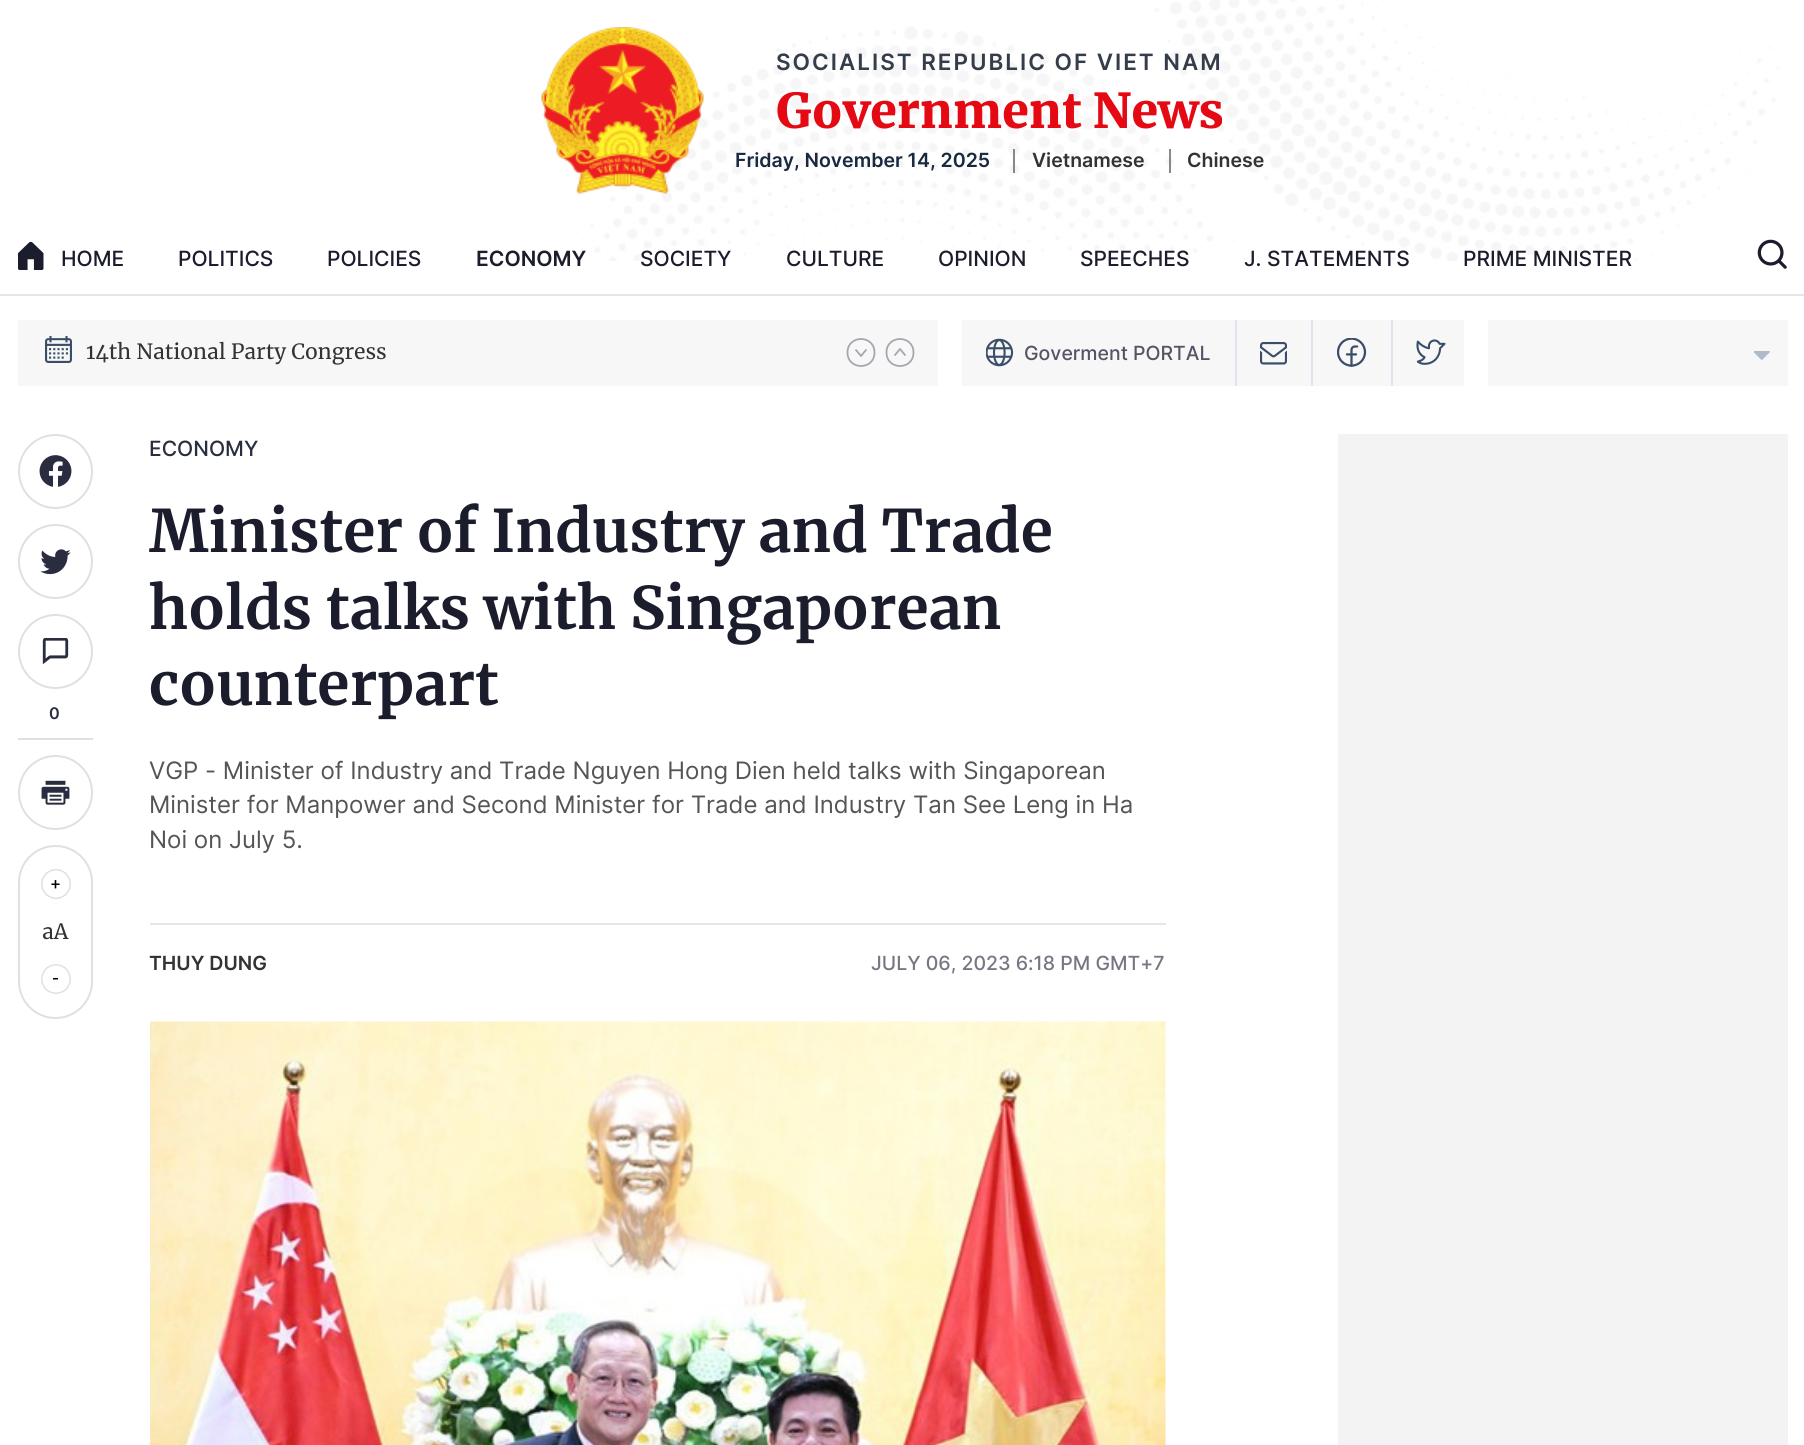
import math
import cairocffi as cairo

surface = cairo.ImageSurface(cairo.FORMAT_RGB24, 1804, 1445)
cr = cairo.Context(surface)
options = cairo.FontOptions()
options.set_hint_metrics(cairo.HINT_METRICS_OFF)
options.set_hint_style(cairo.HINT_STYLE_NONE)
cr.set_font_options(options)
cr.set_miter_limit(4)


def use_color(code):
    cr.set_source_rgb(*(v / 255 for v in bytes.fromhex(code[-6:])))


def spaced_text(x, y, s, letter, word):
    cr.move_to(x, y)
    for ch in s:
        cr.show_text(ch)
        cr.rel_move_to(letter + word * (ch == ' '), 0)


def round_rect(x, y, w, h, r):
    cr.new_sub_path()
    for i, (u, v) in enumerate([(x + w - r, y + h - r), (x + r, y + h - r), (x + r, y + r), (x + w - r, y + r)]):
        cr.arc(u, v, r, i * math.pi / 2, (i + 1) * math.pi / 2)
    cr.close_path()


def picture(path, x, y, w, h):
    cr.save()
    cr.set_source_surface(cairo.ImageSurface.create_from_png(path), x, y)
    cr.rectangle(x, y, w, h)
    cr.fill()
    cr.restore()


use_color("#ffffff")
cr.paint()
use_color("#e6e6e6")
cr.rectangle(0, 294, 1804, 2)
cr.fill()
picture("img1.png", 582, 0, 1197, 261)
picture("img2.png", 541, 27, 163, 167)
cr.select_font_face("Inter SemiBold")
cr.set_font_size(22.5)
use_color("#343d49")
spaced_text(776, 70, "SOCIALIST REPUBLIC OF VIET NAM", 2, 0)
cr.select_font_face("Merriweather Black")
cr.set_font_size(48)
use_color("#e40913")
cr.move_to(776, 128)
cr.show_text("Government News")
cr.select_font_face("Inter SemiBold")
cr.set_font_size(19.5)
use_color("#182940")
cr.move_to(735, 167)
cr.show_text("Friday, November 14, 2025")
use_color("#333333")
cr.move_to(1032, 167)
cr.show_text("Vietnamese")
use_color("#888888")
cr.rectangle(1013, 149, 2, 24)
cr.fill()
use_color("#333333")
cr.move_to(1187, 167)
cr.show_text("Chinese")
use_color("#888888")
cr.rectangle(1169, 149, 2, 24)
cr.fill()
picture("img3.png", 18, 242, 26, 28)
cr.select_font_face("Inter Medium")
cr.set_font_size(21)
use_color("#1b1d2d")
cr.move_to(61, 266)
cr.show_text("HOME")
cr.move_to(178, 266)
cr.show_text("POLITICS")
cr.move_to(327, 266)
cr.show_text("POLICIES")
cr.select_font_face("Inter SemiBold")
cr.move_to(476, 266)
cr.show_text("ECONOMY")
cr.select_font_face("Inter Medium")
cr.move_to(640, 266)
cr.show_text("SOCIETY")
cr.move_to(786, 266)
cr.show_text("CULTURE")
cr.move_to(938, 266)
cr.show_text("OPINION")
cr.move_to(1080, 266)
cr.show_text("SPEECHES")
cr.move_to(1244, 266)
cr.show_text("J. STATEMENTS")
cr.move_to(1463, 266)
cr.show_text("PRIME MINISTER")
picture("img4.png", 1757, 239, 30, 30)
use_color("#f7f7f8")
cr.rectangle(18, 320, 920, 66)
cr.fill()
picture("img5.png", 45, 336, 27, 27)
cr.select_font_face("Merriweather")
use_color("#333333")
cr.move_to(86, 359)
cr.show_text("14th National Party Congress")
cr.new_path()
cr.move_to(874.5, 352.5)
cr.curve_to(874.5, 334.5, 847.5, 334.5, 847.5, 352.5)
cr.curve_to(847.5, 370.5, 874.5, 370.5, 874.5, 352.5)
cr.close_path()
use_color("#a5a6ae")
cr.set_line_width(1.8)
cr.stroke()
cr.new_path()
cr.move_to(856, 350)
cr.line_to(861, 356)
cr.line_to(866, 350)
cr.set_line_cap(cairo.LINE_CAP_ROUND)
cr.set_line_join(cairo.LINE_JOIN_ROUND)
cr.stroke()
cr.new_path()
cr.move_to(913.5, 352.5)
cr.curve_to(913.5, 370.5, 886.5, 370.5, 886.5, 352.5)
cr.curve_to(886.5, 334.5, 913.5, 334.5, 913.5, 352.5)
cr.close_path()
cr.set_line_cap(cairo.LINE_CAP_BUTT)
cr.set_line_join(cairo.LINE_JOIN_MITER)
cr.stroke()
cr.new_path()
cr.move_to(895, 355)
cr.line_to(900, 349)
cr.line_to(905, 355)
cr.set_line_cap(cairo.LINE_CAP_ROUND)
cr.set_line_join(cairo.LINE_JOIN_ROUND)
cr.stroke()
use_color("#f7f7f8")
cr.rectangle(962, 320, 502, 66)
cr.fill()
use_color("#e1e1f0")
cr.rectangle(1235, 320, 2, 66)
cr.fill()
picture("img6.png", 986, 338, 28, 29)
cr.select_font_face("Inter Medium")
cr.set_font_size(19.5)
use_color("#535565")
cr.move_to(1024, 360)
cr.show_text("Goverment PORTAL")
use_color("#e1e1f0")
cr.rectangle(1311, 320, 2, 66)
cr.fill()
picture("img7.png", 1260, 342, 27, 23)
cr.rectangle(1391, 320, 2, 66)
cr.fill()
picture("img8.png", 1337, 338, 30, 29)
picture("img9.png", 1416, 339, 30, 26)
use_color("#f7f7f8")
cr.rectangle(1488, 320, 300, 66)
cr.fill()
picture("img10.png", 1754, 351, 16, 9)
cr.arc(55.5, 471.5, 36.5, 0, 2 * math.pi)
use_color("#dfe0e3")
cr.set_line_width(2)
cr.set_line_cap(cairo.LINE_CAP_BUTT)
cr.set_line_join(cairo.LINE_JOIN_MITER)
cr.stroke()
picture("img11.png", 39, 455, 33, 32)
cr.arc(55.5, 561.5, 36.5, 0, 2 * math.pi)
cr.stroke()
picture("img12.png", 40, 549, 31, 26)
cr.arc(55.5, 651.5, 36.5, 0, 2 * math.pi)
cr.stroke()
picture("img13.png", 42, 638, 27, 27)
cr.rectangle(18, 738, 75, 2)
cr.fill()
cr.select_font_face("Inter SemiBold")
cr.set_font_size(16)
use_color("#2a2d40")
cr.move_to(49, 719)
cr.show_text("0")
cr.new_path()
cr.arc(55.5, 792.5, 36.5, 0, 2 * math.pi)
use_color("#dfe0e3")
cr.stroke()
picture("img14.png", 41, 780, 29, 25)
round_rect(19, 846, 73, 172, 36.5)
cr.stroke()
picture("img15.png", 41, 869, 30, 30)
cr.select_font_face("Merriweather")
cr.set_font_size(21)
use_color("#333333")
cr.move_to(42, 939)
cr.show_text("aA")
use_color("#000000")
cr.new_path()
cr.move_to(58, 978)
cr.line_to(58, 979.5)
cr.line_to(53, 979.5)
cr.line_to(53, 978)
cr.close_path()
cr.fill()
cr.arc(56, 979, 14.25, 0, 2 * math.pi)
use_color("#dfe0e3")
cr.set_line_width(1.5)
cr.stroke()
cr.select_font_face("Inter Medium")
use_color("#2a2d40")
cr.move_to(149, 456)
cr.show_text("ECONOMY")
cr.select_font_face("Merriweather", cairo.FONT_SLANT_NORMAL, cairo.FONT_WEIGHT_BOLD)
cr.set_font_size(58.5)
use_color("#1b1d2d")
cr.move_to(149, 552)
cr.show_text("Minister of Industry and Trade")
cr.move_to(149, 629)
cr.show_text("holds talks with Singaporean")
cr.move_to(149, 705)
cr.show_text("counterpart")
cr.select_font_face("Inter")
cr.set_font_size(24)
use_color("#555555")
cr.move_to(149, 779)
cr.show_text("VGP - Minister of Industry and Trade Nguyen Hong Dien held talks with Singaporean")
cr.move_to(149, 813)
cr.show_text("Minister for Manpower and Second Minister for Trade and Industry Tan See Leng in Ha")
cr.move_to(149, 848)
cr.show_text("Noi on July 5.")
use_color("#e6e6e6")
cr.rectangle(150, 923, 1016, 2)
cr.fill()
cr.select_font_face("Inter SemiBold")
cr.set_font_size(19.5)
use_color("#333333")
cr.move_to(149, 970)
cr.show_text("THUY DUNG")
cr.select_font_face("Inter Medium")
use_color("#757783")
cr.move_to(871, 970)
cr.show_text("JULY 06, 2023 6:18 PM GMT+7")
picture("img16.png", 150, 1021, 1016, 424)
use_color("#f3f3f3")
cr.rectangle(1338, 434, 450, 1011)
cr.fill()
surface.write_to_png("result.png")
